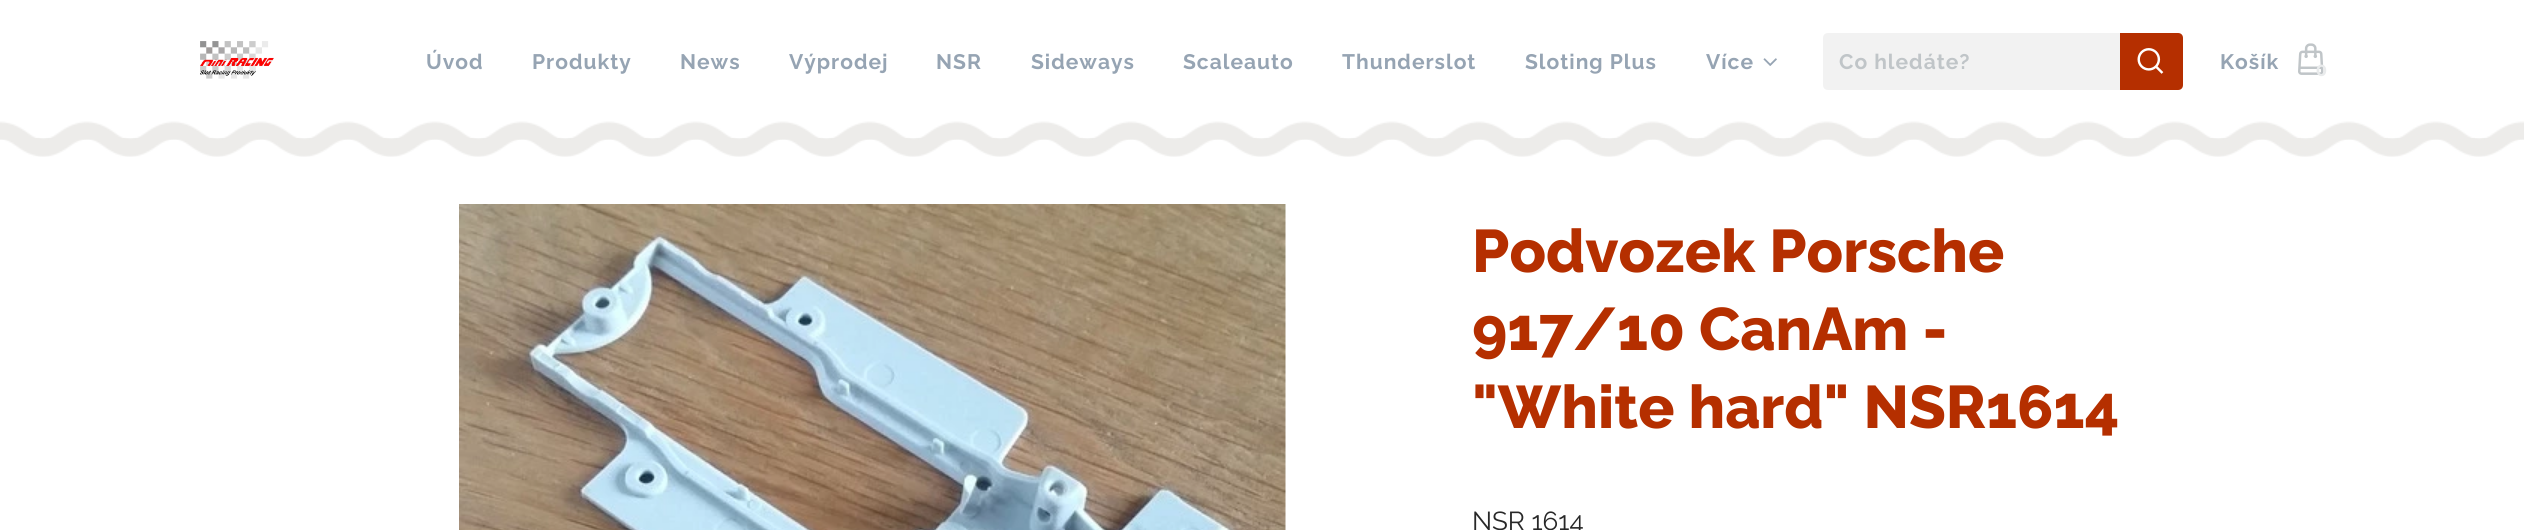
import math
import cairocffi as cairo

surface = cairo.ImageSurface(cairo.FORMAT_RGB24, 2524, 530)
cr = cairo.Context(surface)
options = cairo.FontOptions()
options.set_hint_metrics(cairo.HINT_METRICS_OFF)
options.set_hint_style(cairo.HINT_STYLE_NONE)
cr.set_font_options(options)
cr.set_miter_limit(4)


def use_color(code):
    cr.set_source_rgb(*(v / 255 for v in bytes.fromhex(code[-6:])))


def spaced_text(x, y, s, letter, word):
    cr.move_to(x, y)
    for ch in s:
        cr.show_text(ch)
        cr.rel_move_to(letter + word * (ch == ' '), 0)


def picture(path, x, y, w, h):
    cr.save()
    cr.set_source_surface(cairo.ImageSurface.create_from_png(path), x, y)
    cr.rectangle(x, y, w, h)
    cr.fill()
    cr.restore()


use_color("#ffffff")
cr.paint()
picture("img1.png", 200, 41, 74, 38)
cr.select_font_face("Raleway", cairo.FONT_SLANT_NORMAL, cairo.FONT_WEIGHT_BOLD)
cr.set_font_size(21)
use_color("#96a4b3")
spaced_text(426, 69, "Úvod", 1, 0)
spaced_text(532, 69, "Produkty", 1, 0)
spaced_text(680, 69, "News", 1, 0)
spaced_text(789, 69, "Výprodej", 1, 0)
spaced_text(936, 69, "NSR", 1, 0)
spaced_text(1031, 69, "Sideways", 1, 0)
spaced_text(1183, 69, "Scaleauto", 1, 0)
spaced_text(1342, 69, "Thunderslot", 1, 0)
spaced_text(1525, 69, "Sloting Plus", 1, 0)
spaced_text(1706, 69, "Více", 1, 0)
picture("img2.png", 1763, 58, 14, 8)
use_color("#f2f2f2")
cr.new_path()
cr.move_to(1828, 33)
cr.line_to(2120, 33)
cr.line_to(2120, 90)
cr.line_to(1828, 90)
cr.curve_to(1825, 90, 1823, 88, 1823, 85)
cr.line_to(1823, 38)
cr.curve_to(1823, 35, 1825, 33, 1828, 33)
cr.close_path()
cr.fill()
use_color("#c0c5c8")
spaced_text(1839, 69, "Co hledáte?", 1, 0)
use_color("#b52f00")
cr.new_path()
cr.move_to(2120, 33)
cr.line_to(2178, 33)
cr.curve_to(2181, 33, 2183, 35, 2183, 38)
cr.line_to(2183, 85)
cr.curve_to(2183, 88, 2181, 90, 2178, 90)
cr.line_to(2120, 90)
cr.close_path()
cr.fill()
picture("img3.png", 2137, 48, 27, 26)
use_color("#96a4b3")
spaced_text(2220, 69, "Košík", 1, 0)
picture("img4.png", 2298, 43, 26, 32)
cr.select_font_face("Montserrat", cairo.FONT_SLANT_NORMAL, cairo.FONT_WEIGHT_BOLD)
cr.set_font_size(16)
use_color("#e9ebec")
cr.move_to(2316, 76)
cr.show_text("0")
picture("img6.png", 0, 138, 2524, 19)
picture("img5.png", 0, 121, 2524, 19)
picture("img7.png", 459, 204, 827, 326)
cr.select_font_face("Raleway ExtraBold")
cr.set_font_size(60)
use_color("#b52f00")
cr.move_to(1472, 272)
cr.show_text("Podvozek Porsche")
cr.move_to(1472, 350)
cr.show_text("917/10 CanAm -")
cr.move_to(1472, 428)
cr.show_text("\"White hard\" NSR1614")
cr.select_font_face("Raleway")
cr.set_font_size(26)
use_color("#282828")
cr.move_to(1472, 530)
cr.show_text("NSR 1614")
surface.write_to_png("result.png")
